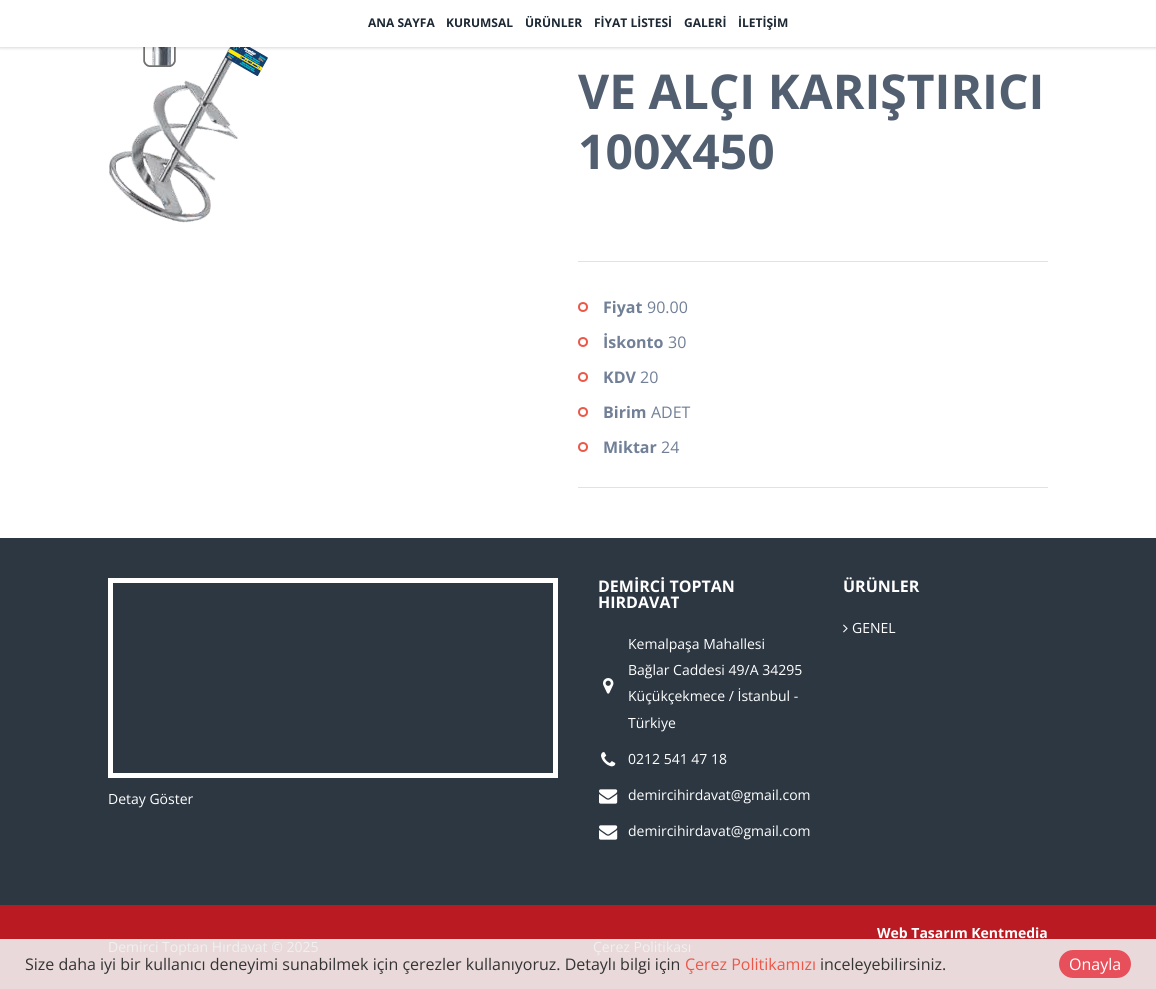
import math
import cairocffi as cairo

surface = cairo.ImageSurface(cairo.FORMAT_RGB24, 1156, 989)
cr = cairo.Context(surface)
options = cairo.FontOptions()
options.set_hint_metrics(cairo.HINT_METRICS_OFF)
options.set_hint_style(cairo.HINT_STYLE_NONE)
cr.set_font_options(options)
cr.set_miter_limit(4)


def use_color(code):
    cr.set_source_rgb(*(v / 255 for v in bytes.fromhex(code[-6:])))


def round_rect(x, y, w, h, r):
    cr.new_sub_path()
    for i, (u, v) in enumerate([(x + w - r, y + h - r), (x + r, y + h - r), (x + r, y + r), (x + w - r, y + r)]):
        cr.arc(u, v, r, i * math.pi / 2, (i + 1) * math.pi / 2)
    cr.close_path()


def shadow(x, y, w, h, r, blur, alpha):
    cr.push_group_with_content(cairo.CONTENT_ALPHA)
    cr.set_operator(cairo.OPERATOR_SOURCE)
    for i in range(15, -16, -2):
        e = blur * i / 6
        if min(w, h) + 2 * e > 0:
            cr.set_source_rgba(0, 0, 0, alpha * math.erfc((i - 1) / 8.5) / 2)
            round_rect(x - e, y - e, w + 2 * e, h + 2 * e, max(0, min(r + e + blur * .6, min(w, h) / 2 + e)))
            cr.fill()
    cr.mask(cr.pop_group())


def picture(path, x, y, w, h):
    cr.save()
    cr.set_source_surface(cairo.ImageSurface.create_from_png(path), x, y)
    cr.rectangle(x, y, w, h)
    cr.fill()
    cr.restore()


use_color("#ffffff")
cr.paint()
picture("img1.png", 109, 47, 159, 176)
use_color("#000000")
shadow(0, 1, 1156, 47, 0, 1.5, 0.16)
use_color("#ffffff")
cr.rectangle(0, 0, 1156, 47)
cr.fill()
cr.select_font_face("Open Sans", cairo.FONT_SLANT_NORMAL, cairo.FONT_WEIGHT_BOLD)
cr.set_font_size(12)
use_color("#1c2833")
cr.move_to(368, 27)
cr.show_text("ANA SAYFA")
cr.move_to(446, 27)
cr.show_text("KURUMSAL")
cr.move_to(525, 27)
cr.show_text("ÜRÜNLER")
cr.move_to(594, 27)
cr.show_text("FİYAT LİSTESİ")
cr.move_to(684, 27)
cr.show_text("GALERİ")
cr.move_to(738, 27)
cr.show_text("İLETİŞİM")
use_color("#dce3ef")
cr.rectangle(578, 261, 470, 1)
cr.fill()
cr.set_font_size(48)
use_color("#525f71")
cr.move_to(578, 109)
cr.show_text("VE ALÇI KARIŞTIRICI")
cr.move_to(578, 169)
cr.show_text("100X450")
use_color("#dce3ef")
cr.rectangle(578, 487, 470, 1)
cr.fill()
cr.arc(583, 307, 4, 0, 2 * math.pi)
use_color("#eb5848")
cr.stroke()
cr.set_font_size(16)
use_color("#718097")
cr.move_to(603, 313)
cr.show_text("Fiyat")
cr.select_font_face("Open Sans")
cr.move_to(647, 313)
cr.show_text("90.00")
cr.new_path()
cr.arc(583, 342, 4, 0, 2 * math.pi)
use_color("#eb5848")
cr.stroke()
cr.select_font_face("Open Sans", cairo.FONT_SLANT_NORMAL, cairo.FONT_WEIGHT_BOLD)
use_color("#718097")
cr.move_to(603, 348)
cr.show_text("İskonto")
cr.select_font_face("Open Sans")
cr.move_to(668, 348)
cr.show_text("30")
cr.new_path()
cr.arc(583, 377, 4, 0, 2 * math.pi)
use_color("#eb5848")
cr.stroke()
cr.select_font_face("Open Sans", cairo.FONT_SLANT_NORMAL, cairo.FONT_WEIGHT_BOLD)
use_color("#718097")
cr.move_to(603, 383)
cr.show_text("KDV")
cr.select_font_face("Open Sans")
cr.move_to(640, 383)
cr.show_text("20")
cr.new_path()
cr.arc(583, 412, 4, 0, 2 * math.pi)
use_color("#eb5848")
cr.stroke()
cr.select_font_face("Open Sans", cairo.FONT_SLANT_NORMAL, cairo.FONT_WEIGHT_BOLD)
use_color("#718097")
cr.move_to(603, 418)
cr.show_text("Birim")
cr.select_font_face("Open Sans")
cr.move_to(651, 418)
cr.show_text("ADET")
cr.new_path()
cr.arc(583, 447, 4, 0, 2 * math.pi)
use_color("#eb5848")
cr.stroke()
cr.select_font_face("Open Sans", cairo.FONT_SLANT_NORMAL, cairo.FONT_WEIGHT_BOLD)
use_color("#718097")
cr.move_to(603, 453)
cr.show_text("Miktar")
cr.select_font_face("Open Sans")
cr.move_to(661, 453)
cr.show_text("24")
use_color("#2d3742")
cr.rectangle(0, 538, 1156, 367)
cr.fill()
cr.select_font_face("Open Sans", cairo.FONT_SLANT_NORMAL, cairo.FONT_WEIGHT_BOLD)
use_color("#ffffff")
cr.move_to(598, 592)
cr.show_text("DEMİRCİ TOPTAN")
cr.move_to(598, 608)
cr.show_text("HIRDAVAT")
cr.select_font_face("Open Sans")
cr.set_font_size(14)
cr.move_to(628, 649)
cr.show_text("Kemalpaşa Mahallesi")
cr.move_to(628, 675)
cr.show_text("Bağlar Caddesi 49/A 34295")
picture("img2.png", 603, 678, 11, 16)
cr.move_to(628, 701)
cr.show_text("Küçükçekmece / İstanbul -")
cr.move_to(628, 728)
cr.show_text("Türkiye")
picture("img3.png", 601, 752, 15, 15)
cr.move_to(628, 764)
cr.show_text("0212 541 47 18")
picture("img4.png", 599, 789, 19, 15)
cr.move_to(628, 800)
cr.show_text("demircihirdavat@gmail.com")
picture("img4.png", 599, 825, 19, 15)
cr.move_to(628, 836)
cr.show_text("demircihirdavat@gmail.com")
cr.select_font_face("Open Sans", cairo.FONT_SLANT_NORMAL, cairo.FONT_WEIGHT_BOLD)
cr.set_font_size(16)
cr.move_to(843, 592)
cr.show_text("ÜRÜNLER")
picture("img5.png", 843, 624, 5, 9)
cr.select_font_face("Open Sans")
cr.set_font_size(14)
cr.move_to(852, 633)
cr.show_text("GENEL")
cr.rectangle(110.5, 580.5, 445, 195)
cr.set_line_width(5)
cr.stroke()
cr.move_to(108, 804)
cr.show_text("Detay Göster")
use_color("#ba1b22")
cr.rectangle(0, 905, 1156, 34)
cr.fill()
use_color("#e9d9da")
cr.rectangle(0, 939, 1156, 50)
cr.fill()
cr.select_font_face("Open Sans", cairo.FONT_SLANT_NORMAL, cairo.FONT_WEIGHT_BOLD)
use_color("#ffffff")
cr.move_to(877, 938)
cr.show_text("Web Tasarım Kentmedia")
cr.select_font_face("Open Sans")
use_color("#f0f0f0")
cr.move_to(108, 952)
cr.show_text("Demirci Toptan Hırdavat © 2025")
cr.move_to(593, 952)
cr.show_text("Çerez Politikası")
cr.set_font_size(16)
use_color("#333333")
cr.move_to(25, 970)
cr.show_text("Size daha iyi bir kullanıcı deneyimi sunabilmek için çerezler kullanıyoruz. Detaylı bilgi için")
use_color("#eb5848")
cr.move_to(685, 970)
cr.show_text("Çerez Politikamızı")
use_color("#333333")
cr.move_to(820, 970)
cr.show_text("inceleyebilirsiniz.")
use_color("#e7505a")
round_rect(1059, 950, 72, 28, 14)
cr.fill()
use_color("#ffffff")
cr.move_to(1069, 970)
cr.show_text("Onayla")
surface.write_to_png("result.png")
